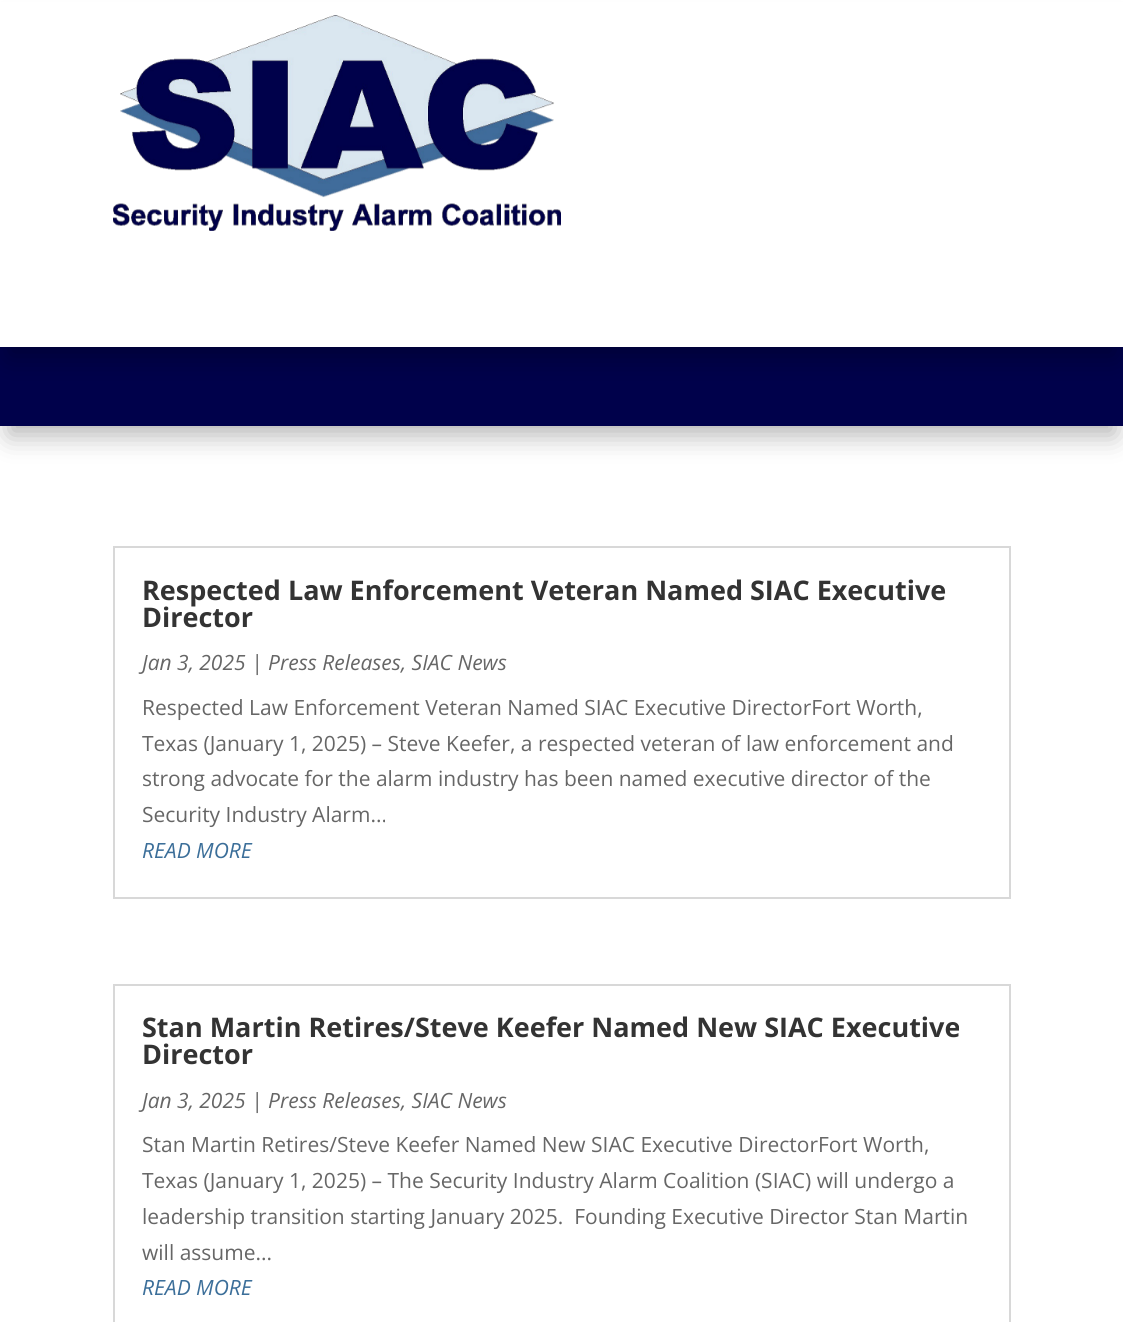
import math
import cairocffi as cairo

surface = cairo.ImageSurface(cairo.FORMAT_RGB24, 1123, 1322)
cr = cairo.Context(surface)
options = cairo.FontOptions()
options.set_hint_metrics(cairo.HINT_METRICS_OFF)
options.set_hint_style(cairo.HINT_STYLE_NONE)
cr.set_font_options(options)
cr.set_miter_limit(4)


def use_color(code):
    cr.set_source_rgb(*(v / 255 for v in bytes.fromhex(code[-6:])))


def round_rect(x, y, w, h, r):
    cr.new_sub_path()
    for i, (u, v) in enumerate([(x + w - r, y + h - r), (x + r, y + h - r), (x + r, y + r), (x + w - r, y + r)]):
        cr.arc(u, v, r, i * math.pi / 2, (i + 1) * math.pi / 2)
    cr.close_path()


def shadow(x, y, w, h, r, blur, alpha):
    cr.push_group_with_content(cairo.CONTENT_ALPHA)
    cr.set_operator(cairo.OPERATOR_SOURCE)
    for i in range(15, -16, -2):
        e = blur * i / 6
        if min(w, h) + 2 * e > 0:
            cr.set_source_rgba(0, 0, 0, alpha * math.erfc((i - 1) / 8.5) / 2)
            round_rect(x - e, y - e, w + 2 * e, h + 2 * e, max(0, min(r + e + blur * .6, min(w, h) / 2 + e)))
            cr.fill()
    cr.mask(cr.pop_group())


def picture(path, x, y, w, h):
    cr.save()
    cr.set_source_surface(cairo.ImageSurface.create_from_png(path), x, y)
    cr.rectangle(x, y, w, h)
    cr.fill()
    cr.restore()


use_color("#ffffff")
cr.paint()
use_color("#000000")
shadow(9, 177, 1106, 258, 0, 13.5, 0.3)
use_color("#00014b")
cr.rectangle(0, 347, 1123, 79)
cr.fill()
use_color("#000000")
shadow(9, 27, 1106, 329, 0, 13.5, 0.3)
use_color("#ffffff")
cr.rectangle(0, 2, 1123, 345)
cr.fill()
picture("img1.png", 113, 15, 448, 216)
cr.rectangle(114, 547, 896, 351)
use_color("#d8d8d8")
cr.stroke()
cr.select_font_face("Open Sans", cairo.FONT_SLANT_NORMAL, cairo.FONT_WEIGHT_BOLD)
cr.set_font_size(27)
use_color("#333333")
cr.move_to(142, 600)
cr.show_text("Respected Law Enforcement Veteran Named SIAC Executive")
cr.move_to(142, 627)
cr.show_text("Director")
cr.select_font_face("Open Sans", cairo.FONT_SLANT_ITALIC)
cr.set_font_size(21)
use_color("#666666")
cr.move_to(142, 670)
cr.show_text("Jan 3, 2025 | Press Releases, SIAC News")
cr.select_font_face("Open Sans")
cr.move_to(142, 715)
cr.show_text("Respected Law Enforcement Veteran Named SIAC Executive DirectorFort Worth,")
cr.move_to(142, 751)
cr.show_text("Texas (January 1, 2025) – Steve Keefer, a respected veteran of law enforcement and")
cr.move_to(142, 786)
cr.show_text("strong advocate for the alarm industry has been named executive director of the")
cr.move_to(142, 822)
cr.show_text("Security Industry Alarm...")
cr.select_font_face("Open Sans", cairo.FONT_SLANT_ITALIC)
use_color("#3b6e99")
cr.move_to(142, 858)
cr.show_text("READ MORE")
cr.rectangle(114, 985, 896, 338)
use_color("#d8d8d8")
cr.stroke()
cr.select_font_face("Open Sans", cairo.FONT_SLANT_NORMAL, cairo.FONT_WEIGHT_BOLD)
cr.set_font_size(27)
use_color("#333333")
cr.move_to(142, 1037)
cr.show_text("Stan Martin Retires/Steve Keefer Named New SIAC Executive")
cr.move_to(142, 1064)
cr.show_text("Director")
cr.select_font_face("Open Sans", cairo.FONT_SLANT_ITALIC)
cr.set_font_size(21)
use_color("#666666")
cr.move_to(142, 1108)
cr.show_text("Jan 3, 2025 | Press Releases, SIAC News")
cr.select_font_face("Open Sans")
cr.move_to(142, 1152)
cr.show_text("Stan Martin Retires/Steve Keefer Named New SIAC Executive DirectorFort Worth,")
cr.move_to(142, 1188)
cr.show_text("Texas (January 1, 2025) – The Security Industry Alarm Coalition (SIAC) will undergo a")
cr.move_to(142, 1224)
cr.show_text("leadership transition starting January 2025.  Founding Executive Director Stan Martin")
cr.move_to(142, 1260)
cr.show_text("will assume...")
cr.select_font_face("Open Sans", cairo.FONT_SLANT_ITALIC)
use_color("#3b6e99")
cr.move_to(142, 1295)
cr.show_text("READ MORE")
surface.write_to_png("result.png")
